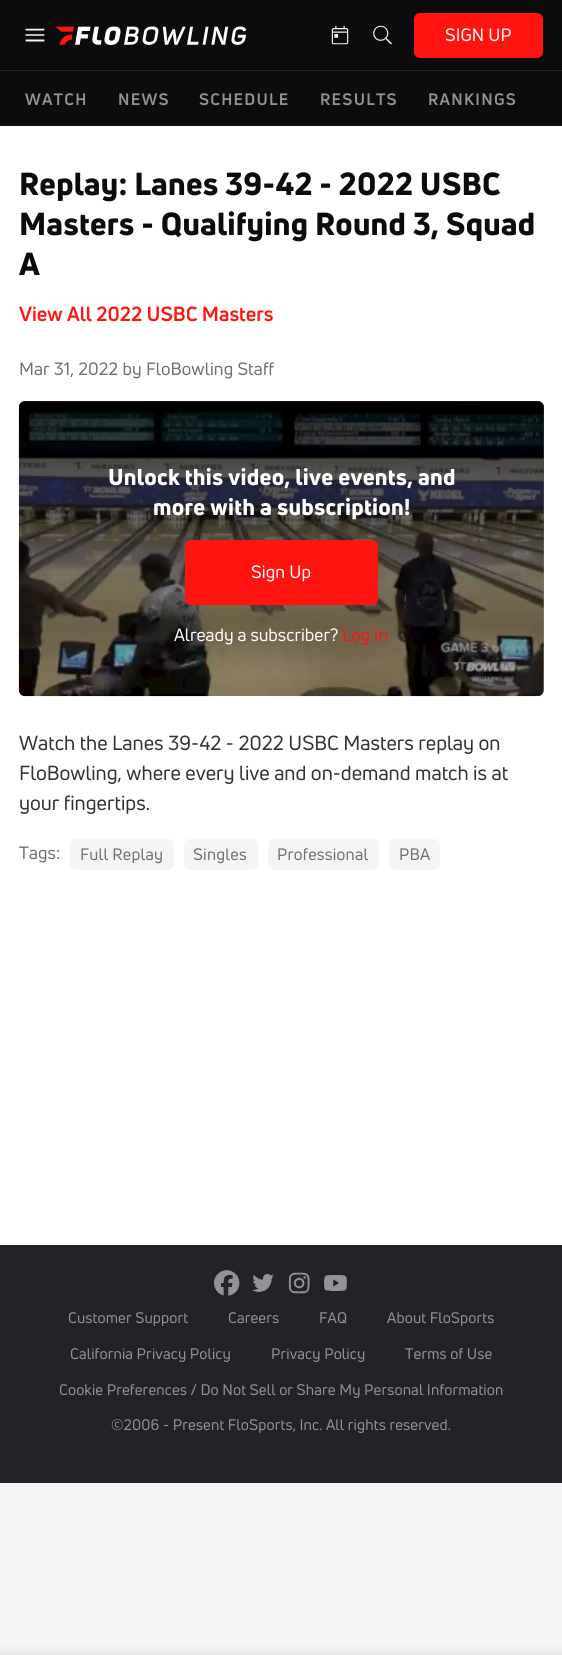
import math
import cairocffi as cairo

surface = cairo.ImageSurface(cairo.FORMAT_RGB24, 562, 1655)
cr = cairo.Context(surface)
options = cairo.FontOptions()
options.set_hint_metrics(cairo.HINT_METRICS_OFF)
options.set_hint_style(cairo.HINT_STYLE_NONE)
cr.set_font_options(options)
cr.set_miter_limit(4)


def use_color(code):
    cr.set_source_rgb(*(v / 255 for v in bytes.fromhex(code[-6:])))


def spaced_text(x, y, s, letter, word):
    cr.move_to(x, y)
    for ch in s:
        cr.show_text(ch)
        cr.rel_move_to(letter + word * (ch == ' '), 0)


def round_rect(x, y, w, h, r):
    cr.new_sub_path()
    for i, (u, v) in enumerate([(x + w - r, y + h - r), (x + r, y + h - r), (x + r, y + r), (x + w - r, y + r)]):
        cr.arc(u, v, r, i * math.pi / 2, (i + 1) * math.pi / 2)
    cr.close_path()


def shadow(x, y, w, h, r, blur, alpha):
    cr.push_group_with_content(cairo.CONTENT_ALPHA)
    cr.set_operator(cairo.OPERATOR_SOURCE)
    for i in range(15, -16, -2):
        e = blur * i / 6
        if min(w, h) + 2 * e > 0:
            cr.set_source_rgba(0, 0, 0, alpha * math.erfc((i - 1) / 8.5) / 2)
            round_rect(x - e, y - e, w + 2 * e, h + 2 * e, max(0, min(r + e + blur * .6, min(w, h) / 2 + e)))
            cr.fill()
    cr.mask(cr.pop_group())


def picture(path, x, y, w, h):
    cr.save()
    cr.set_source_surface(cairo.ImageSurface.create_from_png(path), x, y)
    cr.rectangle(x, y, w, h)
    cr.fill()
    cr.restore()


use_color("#f5f5f7")
cr.paint()
use_color("#0c0c0c")
cr.rectangle(0, 0, 562, 126)
cr.fill()
picture("img1.png", 25, 28, 20, 14)
picture("img2.png", 55, 26, 191, 19)
picture("img3.png", 331, 25, 18, 20)
picture("img4.png", 373, 25, 19, 20)
use_color("#ff140f")
round_rect(414.5, 13.5, 128, 44, 5.5)
cr.fill_preserve()
cr.set_line_width(1)
cr.stroke()
cr.select_font_face("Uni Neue")
cr.set_font_size(17.5)
use_color("#ffffff")
spaced_text(445, 41, "SIGN UP", 0.12, 0)
use_color("#232327")
cr.rectangle(0, 70, 562, 1)
cr.fill()
cr.select_font_face("Uni Neue", cairo.FONT_SLANT_NORMAL, cairo.FONT_WEIGHT_BOLD)
cr.set_font_size(16.25)
use_color("#939396")
spaced_text(25, 105, "WATCH", 1.25, 0)
spaced_text(118, 105, "NEWS", 1.25, 0)
spaced_text(199, 105, "SCHEDULE", 1.25, 0)
spaced_text(320, 105, "RESULTS", 1.25, 0)
spaced_text(428, 105, "RANKINGS", 1.25, 0)
use_color("#ffffff")
cr.rectangle(0, 126, 562, 1119)
cr.fill()
cr.select_font_face("Uni Neue Black")
cr.set_font_size(31.25)
use_color("#0c0c0c")
spaced_text(19, 195, "Replay: Lanes 39-42 - 2022 USBC", 0.25, 0)
spaced_text(19, 235, "Masters - Qualifying Round 3, Squad", 0.25, 0)
spaced_text(19, 275, "A", 0.25, 0)
cr.select_font_face("Uni Neue", cairo.FONT_SLANT_NORMAL, cairo.FONT_WEIGHT_BOLD)
cr.set_font_size(20)
use_color("#ff140f")
cr.move_to(19, 321)
cr.show_text("View All 2022 USBC Masters")
cr.select_font_face("Uni Neue")
cr.set_font_size(17.5)
use_color("#6f6f73")
spaced_text(19, 375, "Mar 31, 2022 by FloBowling Staff", 0.12, 0)
gradient = cairo.LinearGradient(19, 549, 544, 549)
gradient.add_color_stop_rgba(0, 0.961, 0.961, 0.969, 1)
gradient.add_color_stop_rgba(0.2, 1, 1, 1, 1)
gradient.add_color_stop_rgba(0.4, 0.961, 0.961, 0.969, 1)
gradient.add_color_stop_rgba(1, 0.961, 0.961, 0.969, 1)
cr.set_source(gradient)
round_rect(19, 401, 525, 295, 6)
cr.fill()
picture("img5.png", 18, 401, 526, 296)
gradient = cairo.LinearGradient(281, 401, 281, 696)
gradient.add_color_stop_rgba(0, 0, 0, 0, 0.8)
gradient.add_color_stop_rgba(1, 0, 0, 0, 0.3)
cr.set_source(gradient)
round_rect(19, 401, 525, 295, 6)
cr.fill()
cr.select_font_face("Uni Neue Black")
cr.set_font_size(22.5)
use_color("#ffffff")
spaced_text(108, 485, "Unlock this video, live events, and", 0.25, 0)
spaced_text(153, 515, "more with a subscription!", 0.25, 0)
use_color("#ff140f")
round_rect(185.5, 540.5, 192, 64, 5.5)
cr.fill_preserve()
cr.stroke()
cr.select_font_face("Uni Neue")
cr.set_font_size(17.5)
use_color("#ffffff")
spaced_text(251, 578, "Sign Up", 0.12, 0)
cr.move_to(174, 641)
cr.show_text("Already a subscriber?")
use_color("#ff140f")
cr.move_to(342, 641)
cr.show_text("Log In")
cr.set_font_size(20)
use_color("#323236")
cr.move_to(19, 750)
cr.show_text("Watch the Lanes 39-42 - 2022 USBC Masters replay on")
cr.move_to(19, 780)
cr.show_text("FloBowling, where every live and on-demand match is at")
cr.move_to(19, 810)
cr.show_text("your fingertips.")
cr.set_font_size(17.5)
use_color("#6f6f73")
spaced_text(19, 859, "Tags:", 0.12, 0)
use_color("#f5f5f7")
round_rect(70, 839, 104, 31, 6)
cr.fill()
cr.set_font_size(16.25)
use_color("#6f6f73")
spaced_text(80, 860, "Full Replay", 0.25, 0)
use_color("#f5f5f7")
round_rect(184, 839, 74, 31, 6)
cr.fill()
use_color("#6f6f73")
spaced_text(193, 860, "Singles", 0.25, 0)
use_color("#f5f5f7")
round_rect(268, 839, 111, 31, 6)
cr.fill()
use_color("#6f6f73")
spaced_text(277, 860, "Professional", 0.25, 0)
use_color("#f5f5f7")
round_rect(389, 839, 51, 31, 6)
cr.fill()
use_color("#6f6f73")
spaced_text(399, 860, "PBA", 0.25, 0)
use_color("#000000")
shadow(0, 1653, 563, 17, 0, 5, 0.1)
use_color("#232327")
cr.rectangle(0, 1245, 562, 238)
cr.fill()
picture("img6.png", 214, 1270, 26, 26)
picture("img7.png", 252, 1274, 22, 18)
picture("img8.png", 288, 1272, 22, 22)
picture("img9.png", 324, 1275, 23, 16)
cr.set_font_size(15)
use_color("#939396")
spaced_text(68, 1323, "Customer Support", 0.12, 0)
spaced_text(228, 1323, "Careers", 0.12, 0)
spaced_text(319, 1323, "FAQ", 0.12, 0)
spaced_text(387, 1323, "About FloSports", 0.12, 0)
spaced_text(70, 1359, "California Privacy Policy", 0.12, 0)
spaced_text(271, 1359, "Privacy Policy", 0.12, 0)
spaced_text(405, 1359, "Terms of Use", 0.12, 0)
spaced_text(59, 1395, "Cookie Preferences / Do Not Sell or Share My Personal Information", 0.12, 0)
spaced_text(111, 1430, "©2006 - Present FloSports, Inc. All rights reserved.", 0.12, 0)
surface.write_to_png("result.png")
